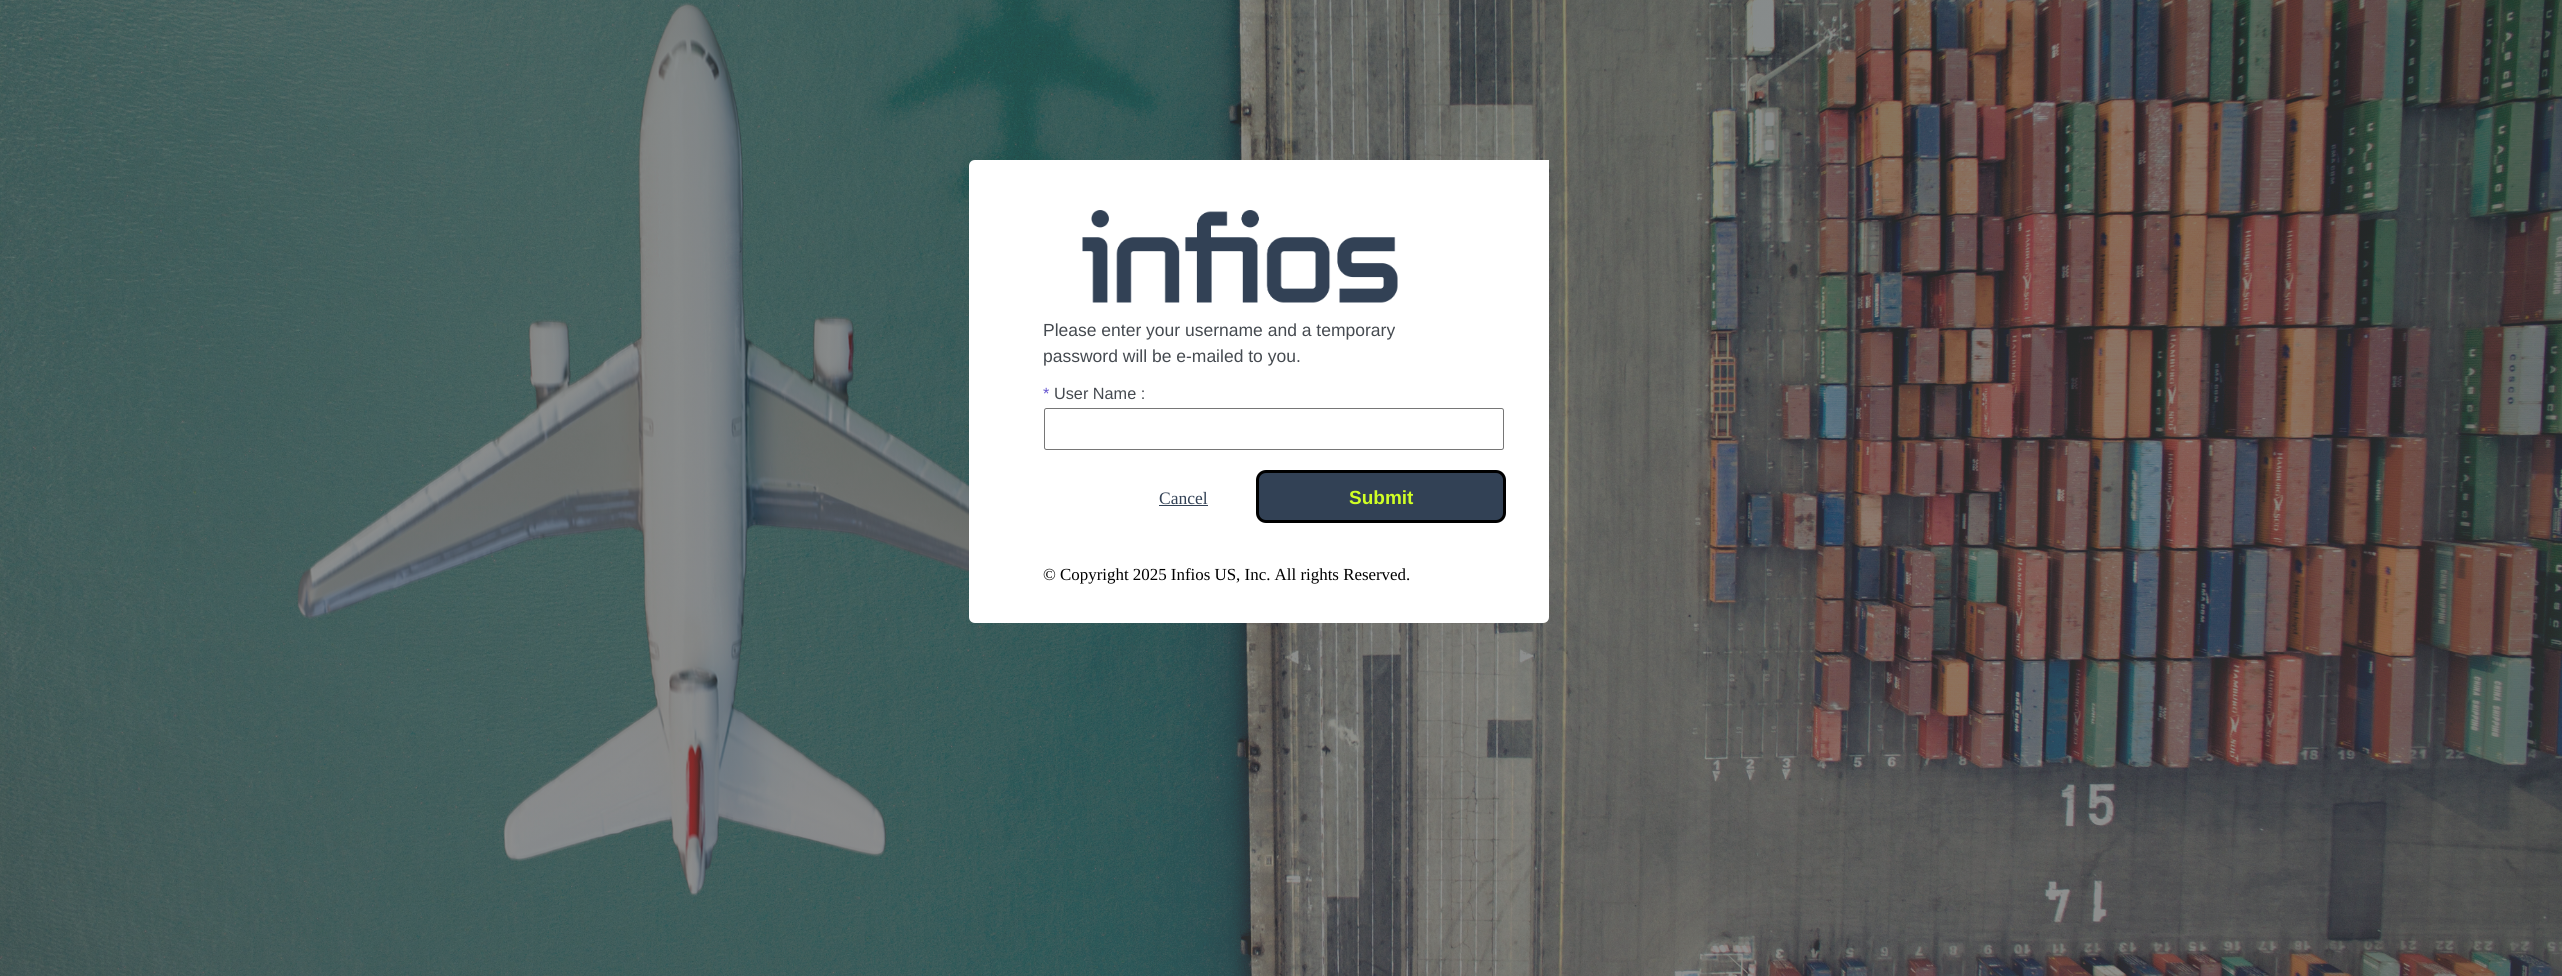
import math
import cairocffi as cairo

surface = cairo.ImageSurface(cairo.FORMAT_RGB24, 2562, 976)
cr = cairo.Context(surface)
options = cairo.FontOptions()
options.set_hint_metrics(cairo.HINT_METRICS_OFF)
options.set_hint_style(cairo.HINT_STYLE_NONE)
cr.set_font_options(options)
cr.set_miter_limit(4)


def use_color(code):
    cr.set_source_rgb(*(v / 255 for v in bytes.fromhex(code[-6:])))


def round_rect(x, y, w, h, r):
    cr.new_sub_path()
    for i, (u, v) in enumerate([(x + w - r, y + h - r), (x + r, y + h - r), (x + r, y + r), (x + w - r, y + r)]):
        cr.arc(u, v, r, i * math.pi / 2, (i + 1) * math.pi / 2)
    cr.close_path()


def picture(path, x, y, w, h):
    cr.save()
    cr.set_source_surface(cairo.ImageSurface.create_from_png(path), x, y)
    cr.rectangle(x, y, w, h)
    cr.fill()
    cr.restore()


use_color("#ffffff")
cr.paint()
picture("img1.png", 0, 0, 2562, 976)
use_color("#ffffff")
cr.new_path()
cr.move_to(975, 160)
cr.line_to(1549, 160)
cr.line_to(1549, 617)
cr.curve_to(1549, 620.5, 1546.5, 623, 1543, 623)
cr.line_to(975, 623)
cr.curve_to(971.5, 623, 969, 620.5, 969, 617)
cr.line_to(969, 166)
cr.curve_to(969, 162.5, 971.5, 160, 975, 160)
cr.close_path()
cr.fill()
picture("img2.png", 1082, 210, 316, 93)
cr.select_font_face("Liberation Sans")
cr.set_font_size(17.5)
use_color("#454a50")
cr.move_to(1043, 336)
cr.show_text("Please enter your username and a temporary")
cr.move_to(1043, 362)
cr.show_text("password will be e-mailed to you.")
cr.set_font_size(16.25)
use_color("#6656d0")
cr.move_to(1043, 399)
cr.show_text("*")
use_color("#454a50")
cr.move_to(1054, 399)
cr.show_text("User Name :")
round_rect(1044.5, 408.5, 459, 41, 2)
use_color("#767676")
cr.set_line_width(1)
cr.stroke()
cr.select_font_face("Liberation Serif")
cr.set_font_size(17.5)
use_color("#324155")
cr.move_to(1159, 504)
cr.show_text("Cancel")
cr.rectangle(1159, 505, 49, 1)
cr.fill()
round_rect(1257.5, 471.5, 247, 50, 8.5)
cr.fill_preserve()
use_color("#000000")
cr.set_line_width(3)
cr.stroke()
cr.select_font_face("Liberation Sans", cairo.FONT_SLANT_NORMAL, cairo.FONT_WEIGHT_BOLD)
cr.set_font_size(19)
use_color("#d0ff25")
cr.move_to(1349, 504)
cr.show_text("Submit")
cr.select_font_face("Liberation Serif")
cr.set_font_size(16.9)
use_color("#000000")
cr.move_to(1043, 580)
cr.show_text("© Copyright 2025 Infios US, Inc. All rights Reserved.")
surface.write_to_png("result.png")
